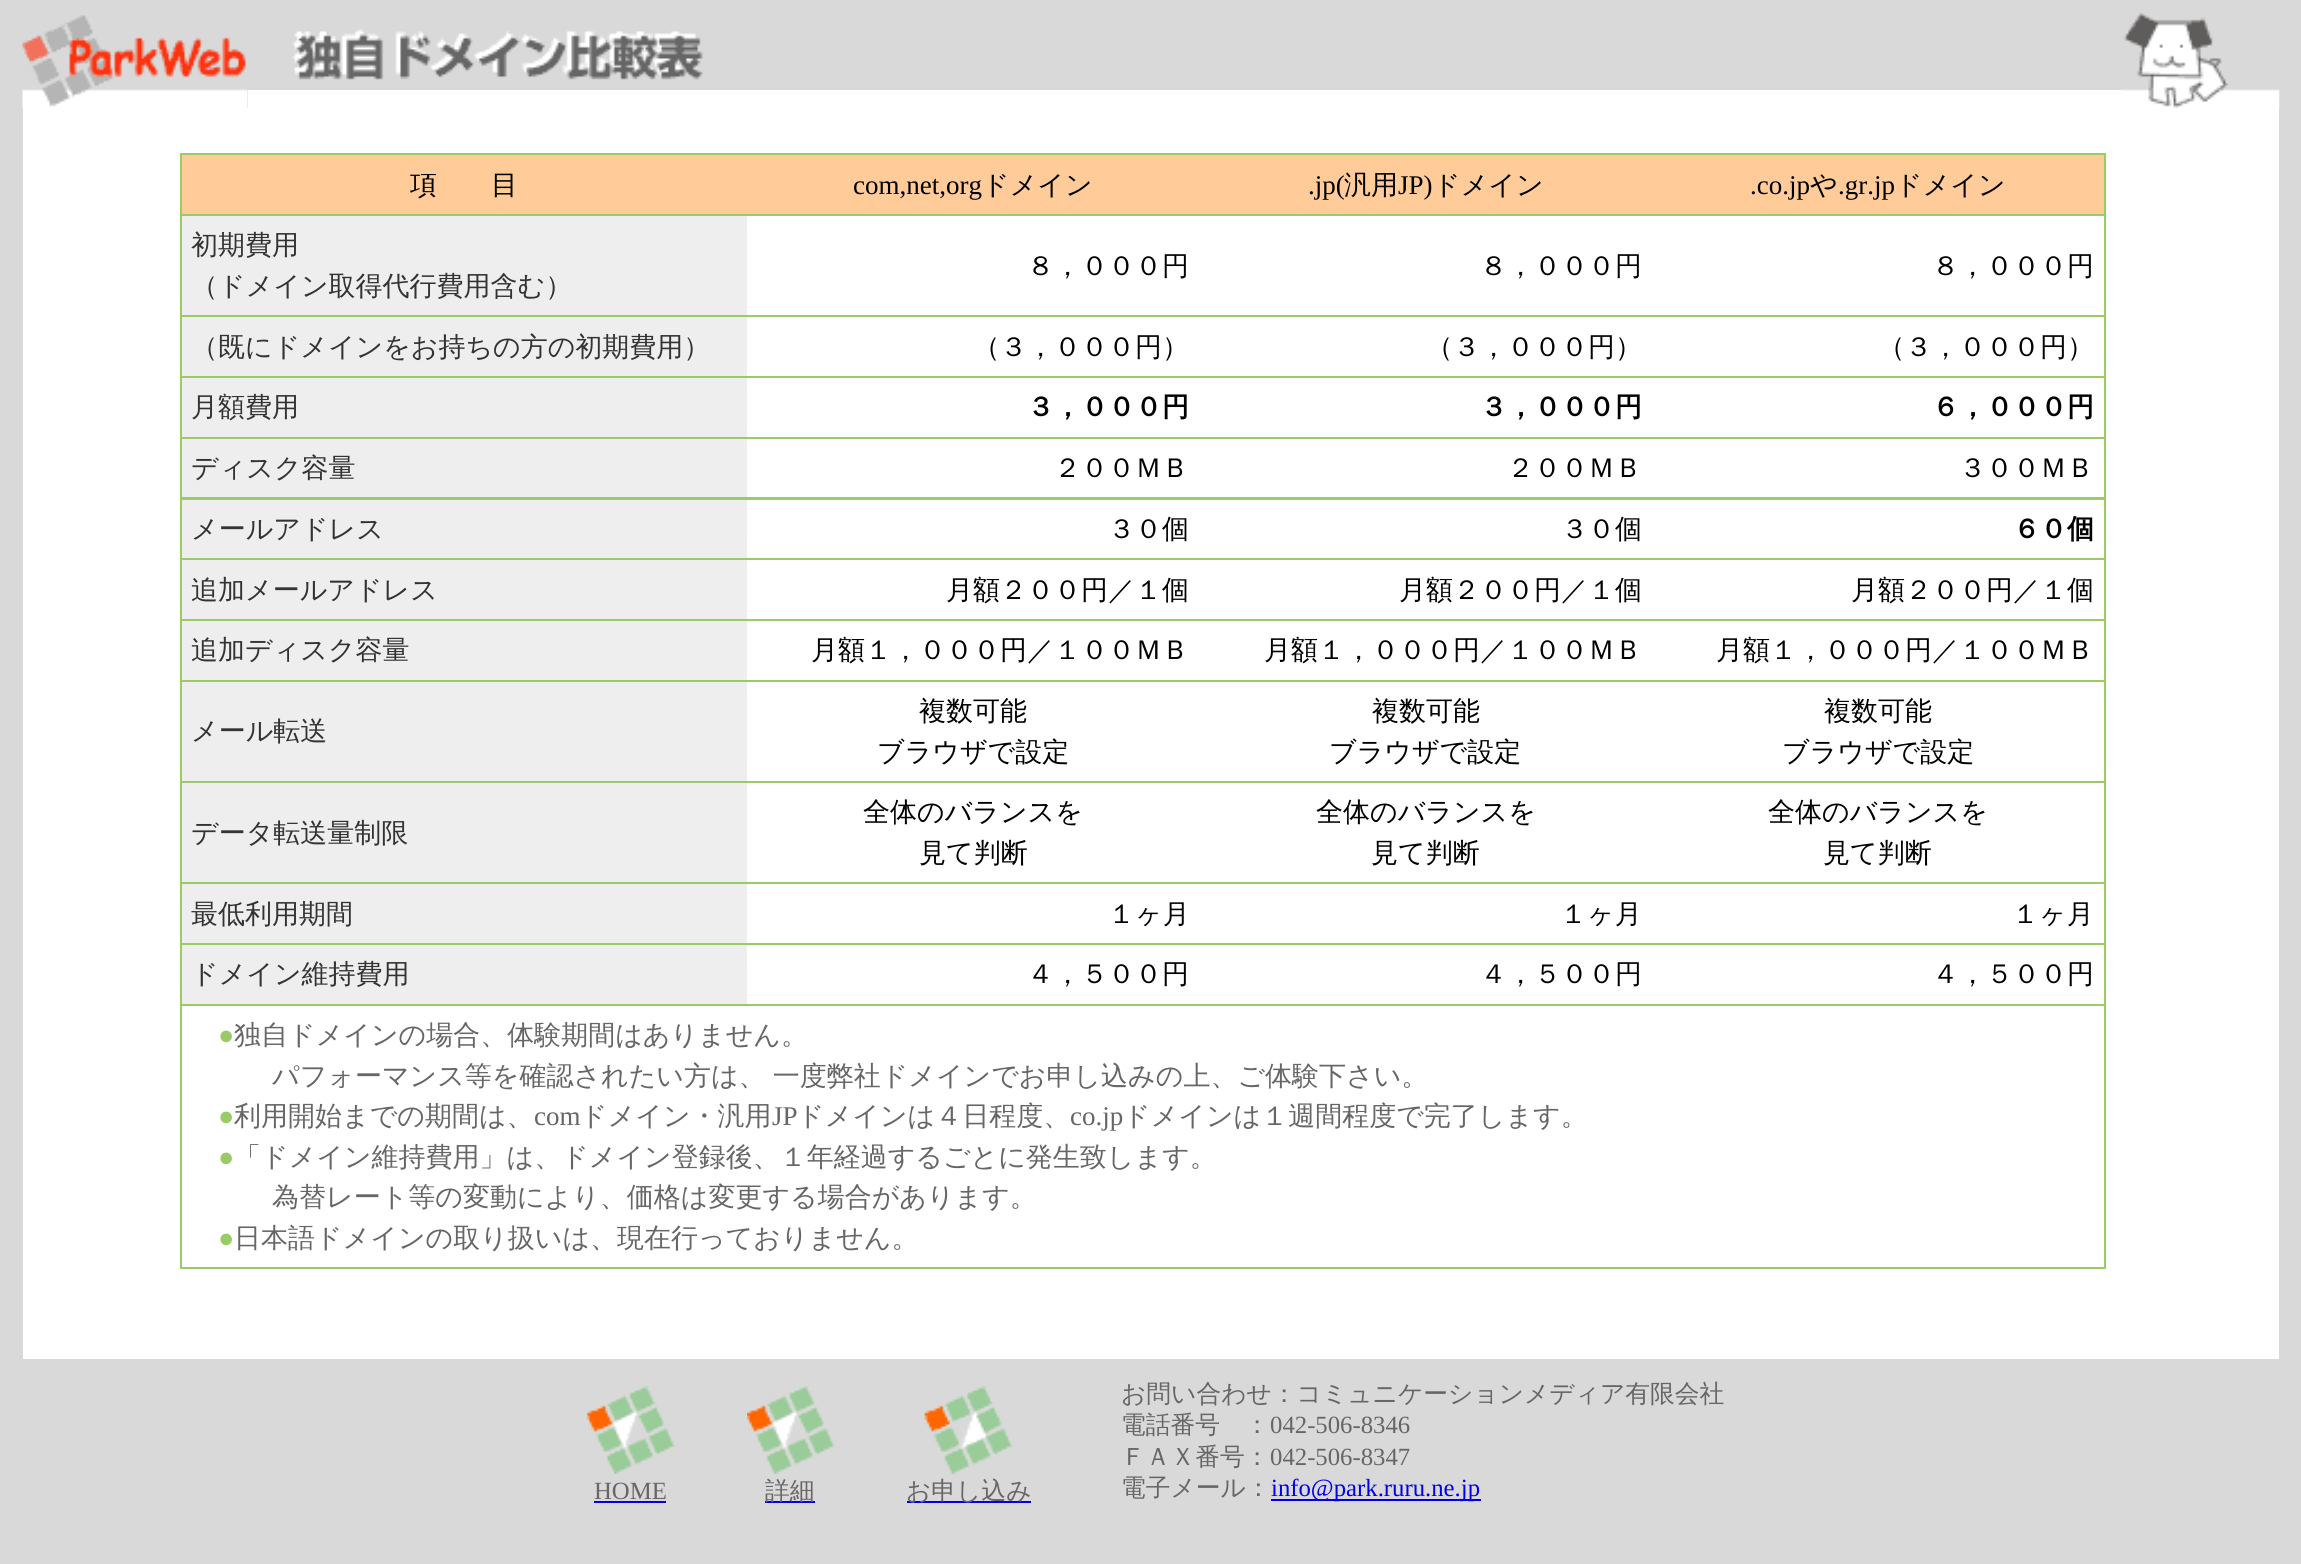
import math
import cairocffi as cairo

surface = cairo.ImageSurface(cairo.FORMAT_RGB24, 2301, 1564)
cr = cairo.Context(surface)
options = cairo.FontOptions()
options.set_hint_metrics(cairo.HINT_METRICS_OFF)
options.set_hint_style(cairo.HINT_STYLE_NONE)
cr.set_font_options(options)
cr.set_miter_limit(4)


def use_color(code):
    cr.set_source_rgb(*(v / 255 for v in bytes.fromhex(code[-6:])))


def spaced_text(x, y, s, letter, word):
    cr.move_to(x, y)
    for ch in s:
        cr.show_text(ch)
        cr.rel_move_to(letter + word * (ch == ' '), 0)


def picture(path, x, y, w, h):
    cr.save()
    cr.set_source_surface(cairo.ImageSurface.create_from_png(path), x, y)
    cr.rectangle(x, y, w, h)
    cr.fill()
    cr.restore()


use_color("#d9d9d9")
cr.paint()
picture("img1.png", 22, 15, 226, 93)
picture("img2.png", 292, 29, 411, 51)
picture("img3.png", 2122, 13, 158, 95)
use_color("#ffffff")
cr.rectangle(248, 90, 1874, 18)
cr.fill()
cr.rectangle(23, 108, 2256, 1251)
cr.fill()
use_color("#99cc66")
cr.rectangle(180, 153, 1926, 1116)
cr.fill()
use_color("#ffcc99")
cr.rectangle(182, 155, 1922, 59)
cr.fill()
cr.select_font_face("WenQuanYi Zen Hei Medium")
cr.set_font_size(27)
use_color("#000000")
cr.move_to(410, 194)
cr.show_text("項　　目")
cr.select_font_face("Liberation Serif")
cr.move_to(853, 194)
cr.show_text("com,net,org")
cr.select_font_face("WenQuanYi Zen Hei Medium")
cr.move_to(982, 194)
cr.show_text("ドメイン")
cr.select_font_face("Liberation Serif")
cr.move_to(1308, 194)
cr.show_text(".jp(")
cr.select_font_face("WenQuanYi Zen Hei Medium")
cr.move_to(1344, 194)
cr.show_text("汎用")
cr.select_font_face("Liberation Serif")
cr.move_to(1398, 194)
cr.show_text("JP)")
cr.select_font_face("WenQuanYi Zen Hei Medium")
cr.move_to(1433, 194)
cr.show_text("ドメイン")
cr.select_font_face("Liberation Serif")
cr.move_to(1750, 194)
cr.show_text(".co.jp")
cr.select_font_face("WenQuanYi Zen Hei Medium")
cr.move_to(1810, 194)
cr.show_text("や")
cr.select_font_face("Liberation Serif")
cr.move_to(1838, 194)
cr.show_text(".gr.jp")
cr.select_font_face("WenQuanYi Zen Hei Medium")
cr.move_to(1895, 194)
cr.show_text("ドメイン")
use_color("#ffffff")
cr.rectangle(747, 216, 1357, 99)
cr.fill()
use_color("#eeeeee")
cr.rectangle(182, 216, 565, 99)
cr.fill()
use_color("#333333")
cr.move_to(191, 254)
cr.show_text("初期費用")
cr.move_to(191, 295)
cr.show_text("（ドメイン取得代行費用含む）")
use_color("#000000")
cr.move_to(1027, 275)
cr.show_text("８，０００円")
cr.move_to(1480, 275)
cr.show_text("８，０００円")
cr.move_to(1932, 275)
cr.show_text("８，０００円")
use_color("#ffffff")
cr.rectangle(747, 317, 1357, 59)
cr.fill()
use_color("#eeeeee")
cr.rectangle(182, 317, 565, 59)
cr.fill()
use_color("#333333")
cr.move_to(191, 356)
cr.show_text("（既にドメインをお持ちの方の初期費用）")
use_color("#000000")
cr.move_to(973, 356)
cr.show_text("（３，０００円）")
cr.move_to(1426, 356)
cr.show_text("（３，０００円）")
cr.move_to(1878, 356)
cr.show_text("（３，０００円）")
use_color("#ffffff")
cr.rectangle(747, 378, 1357, 59)
cr.fill()
use_color("#eeeeee")
cr.rectangle(182, 378, 565, 59)
cr.fill()
use_color("#333333")
cr.move_to(191, 416)
cr.show_text("月額費用")
cr.select_font_face("WenQuanYi Zen Hei", cairo.FONT_SLANT_NORMAL, cairo.FONT_WEIGHT_BOLD)
use_color("#000000")
cr.move_to(1027, 416)
cr.show_text("３，０００円")
cr.move_to(1480, 416)
cr.show_text("３，０００円")
cr.move_to(1932, 416)
cr.show_text("６，０００円")
use_color("#ffffff")
cr.rectangle(747, 439, 1357, 58)
cr.fill()
use_color("#eeeeee")
cr.rectangle(182, 439, 565, 58)
cr.fill()
cr.select_font_face("WenQuanYi Zen Hei Medium")
use_color("#333333")
cr.move_to(191, 477)
cr.show_text("ディスク容量")
use_color("#000000")
cr.move_to(1054, 477)
cr.show_text("２００ＭＢ")
cr.move_to(1507, 477)
cr.show_text("２００ＭＢ")
cr.move_to(1959, 477)
cr.show_text("３００ＭＢ")
use_color("#ffffff")
cr.rectangle(747, 500, 1357, 58)
cr.fill()
use_color("#eeeeee")
cr.rectangle(182, 500, 565, 58)
cr.fill()
use_color("#333333")
cr.move_to(191, 538)
cr.show_text("メールアドレス")
use_color("#000000")
cr.move_to(1108, 538)
cr.show_text("３０個")
cr.move_to(1561, 538)
cr.show_text("３０個")
cr.select_font_face("WenQuanYi Zen Hei", cairo.FONT_SLANT_NORMAL, cairo.FONT_WEIGHT_BOLD)
cr.move_to(2013, 538)
cr.show_text("６０個")
use_color("#ffffff")
cr.rectangle(747, 560, 1357, 59)
cr.fill()
use_color("#eeeeee")
cr.rectangle(182, 560, 565, 59)
cr.fill()
cr.select_font_face("WenQuanYi Zen Hei Medium")
use_color("#333333")
cr.move_to(191, 599)
cr.show_text("追加メールアドレス")
use_color("#000000")
cr.move_to(946, 599)
cr.show_text("月額２００円／１個")
cr.move_to(1399, 599)
cr.show_text("月額２００円／１個")
cr.move_to(1851, 599)
cr.show_text("月額２００円／１個")
use_color("#ffffff")
cr.rectangle(747, 621, 1357, 59)
cr.fill()
use_color("#eeeeee")
cr.rectangle(182, 621, 565, 59)
cr.fill()
use_color("#333333")
cr.move_to(191, 659)
cr.show_text("追加ディスク容量")
use_color("#000000")
cr.move_to(811, 659)
cr.show_text("月額１，０００円／１００ＭＢ")
cr.move_to(1264, 659)
cr.show_text("月額１，０００円／１００ＭＢ")
cr.move_to(1716, 659)
cr.show_text("月額１，０００円／１００ＭＢ")
use_color("#ffffff")
cr.rectangle(747, 682, 1357, 99)
cr.fill()
use_color("#eeeeee")
cr.rectangle(182, 682, 565, 99)
cr.fill()
use_color("#333333")
cr.move_to(191, 740)
cr.show_text("メール転送")
use_color("#000000")
cr.move_to(919, 720)
cr.show_text("複数可能")
cr.move_to(877, 761)
cr.show_text("ブラウザで設定")
cr.move_to(1372, 720)
cr.show_text("複数可能")
cr.move_to(1329, 761)
cr.show_text("ブラウザで設定")
cr.move_to(1824, 720)
cr.show_text("複数可能")
cr.move_to(1782, 761)
cr.show_text("ブラウザで設定")
use_color("#ffffff")
cr.rectangle(747, 783, 1357, 99)
cr.fill()
use_color("#eeeeee")
cr.rectangle(182, 783, 565, 99)
cr.fill()
use_color("#333333")
cr.move_to(191, 842)
cr.show_text("データ転送量制限")
use_color("#000000")
cr.move_to(863, 821)
cr.show_text("全体のバランスを")
cr.move_to(919, 862)
cr.show_text("見て判断")
cr.move_to(1316, 821)
cr.show_text("全体のバランスを")
cr.move_to(1371, 862)
cr.show_text("見て判断")
cr.move_to(1768, 821)
cr.show_text("全体のバランスを")
cr.move_to(1823, 862)
cr.show_text("見て判断")
use_color("#ffffff")
cr.rectangle(747, 884, 1357, 59)
cr.fill()
use_color("#eeeeee")
cr.rectangle(182, 884, 565, 59)
cr.fill()
use_color("#333333")
cr.move_to(191, 923)
cr.show_text("最低利用期間")
use_color("#000000")
cr.move_to(1108, 923)
cr.show_text("１ヶ月")
cr.move_to(1560, 923)
cr.show_text("１ヶ月")
cr.move_to(2012, 923)
cr.show_text("１ヶ月")
use_color("#ffffff")
cr.rectangle(747, 945, 1357, 59)
cr.fill()
use_color("#eeeeee")
cr.rectangle(182, 945, 565, 59)
cr.fill()
use_color("#333333")
cr.move_to(191, 983)
cr.show_text("ドメイン維持費用")
use_color("#000000")
cr.move_to(1027, 983)
cr.show_text("４，５００円")
cr.move_to(1480, 983)
cr.show_text("４，５００円")
cr.move_to(1932, 983)
cr.show_text("４，５００円")
use_color("#ffffff")
cr.rectangle(182, 1006, 1922, 261)
cr.fill()
cr.select_font_face("Liberation Serif")
use_color("#99cc66")
cr.move_to(218, 1044)
cr.show_text("●")
cr.select_font_face("WenQuanYi Zen Hei Medium")
use_color("#666666")
cr.move_to(234, 1044)
cr.show_text("独自ドメインの場合、体験期間はありません。")
spaced_text(272, 1085, "パフォーマンス等を確認されたい方は、 一度弊社ドメインでお申し込みの上、ご体験下さい。", 0, -1)
cr.select_font_face("Liberation Serif")
use_color("#99cc66")
cr.move_to(218, 1125)
cr.show_text("●")
cr.select_font_face("WenQuanYi Zen Hei Medium")
use_color("#666666")
cr.move_to(234, 1125)
cr.show_text("利用開始までの期間は、")
cr.select_font_face("Liberation Serif")
cr.move_to(534, 1125)
cr.show_text("com")
cr.select_font_face("WenQuanYi Zen Hei Medium")
cr.move_to(580, 1125)
cr.show_text("ドメイン・汎用")
cr.select_font_face("Liberation Serif")
cr.move_to(772, 1125)
cr.show_text("JP")
cr.select_font_face("WenQuanYi Zen Hei Medium")
cr.move_to(797, 1125)
cr.show_text("ドメインは４日程度、")
cr.select_font_face("Liberation Serif")
cr.move_to(1070, 1125)
cr.show_text("co.jp")
cr.select_font_face("WenQuanYi Zen Hei Medium")
cr.move_to(1123, 1125)
cr.show_text("ドメインは１週間程度で完了します。")
cr.select_font_face("Liberation Serif")
use_color("#99cc66")
cr.move_to(218, 1166)
cr.show_text("●")
cr.select_font_face("WenQuanYi Zen Hei Medium")
use_color("#666666")
cr.move_to(234, 1166)
cr.show_text("「ドメイン維持費用」は、ドメイン登録後、１年経過するごとに発生致します。")
cr.move_to(272, 1206)
cr.show_text("為替レート等の変動により、価格は変更する場合があります。")
cr.select_font_face("Liberation Serif")
use_color("#99cc66")
cr.move_to(218, 1247)
cr.show_text("●")
cr.select_font_face("WenQuanYi Zen Hei Medium")
use_color("#666666")
cr.move_to(234, 1247)
cr.show_text("日本語ドメインの取り扱いは、現在行っておりません。")
picture("img4.png", 587, 1386, 88, 88)
cr.select_font_face("Liberation Serif")
cr.set_font_size(24.75)
cr.move_to(594, 1499)
cr.show_text("HOME")
use_color("#0000ee")
cr.rectangle(594, 1501, 72, 2)
cr.fill()
picture("img5.png", 747, 1386, 88, 88)
cr.rectangle(765, 1501, 50, 2)
cr.fill()
cr.select_font_face("WenQuanYi Zen Hei Medium")
use_color("#666666")
cr.move_to(765, 1499)
cr.show_text("詳細")
picture("img6.png", 924, 1386, 89, 88)
use_color("#0000ee")
cr.rectangle(907, 1501, 124, 2)
cr.fill()
use_color("#666666")
cr.move_to(906, 1499)
cr.show_text("お申し込み")
cr.move_to(1121, 1402)
cr.show_text("お問い合わせ：コミュニケーションメディア有限会社")
cr.move_to(1121, 1433)
cr.show_text("電話番号　：")
cr.select_font_face("Liberation Serif")
cr.move_to(1270, 1433)
cr.show_text("042-506-8346")
cr.select_font_face("WenQuanYi Zen Hei Medium")
cr.move_to(1121, 1465)
cr.show_text("ＦＡＸ番号：")
cr.select_font_face("Liberation Serif")
cr.move_to(1270, 1465)
cr.show_text("042-506-8347")
cr.select_font_face("WenQuanYi Zen Hei Medium")
cr.move_to(1121, 1496)
cr.show_text("電子メール：")
use_color("#0000ee")
cr.rectangle(1271, 1499, 210, 2)
cr.fill()
cr.select_font_face("Liberation Serif")
cr.move_to(1271, 1496)
cr.show_text("info@park.ruru.ne.jp")
surface.write_to_png("result.png")
